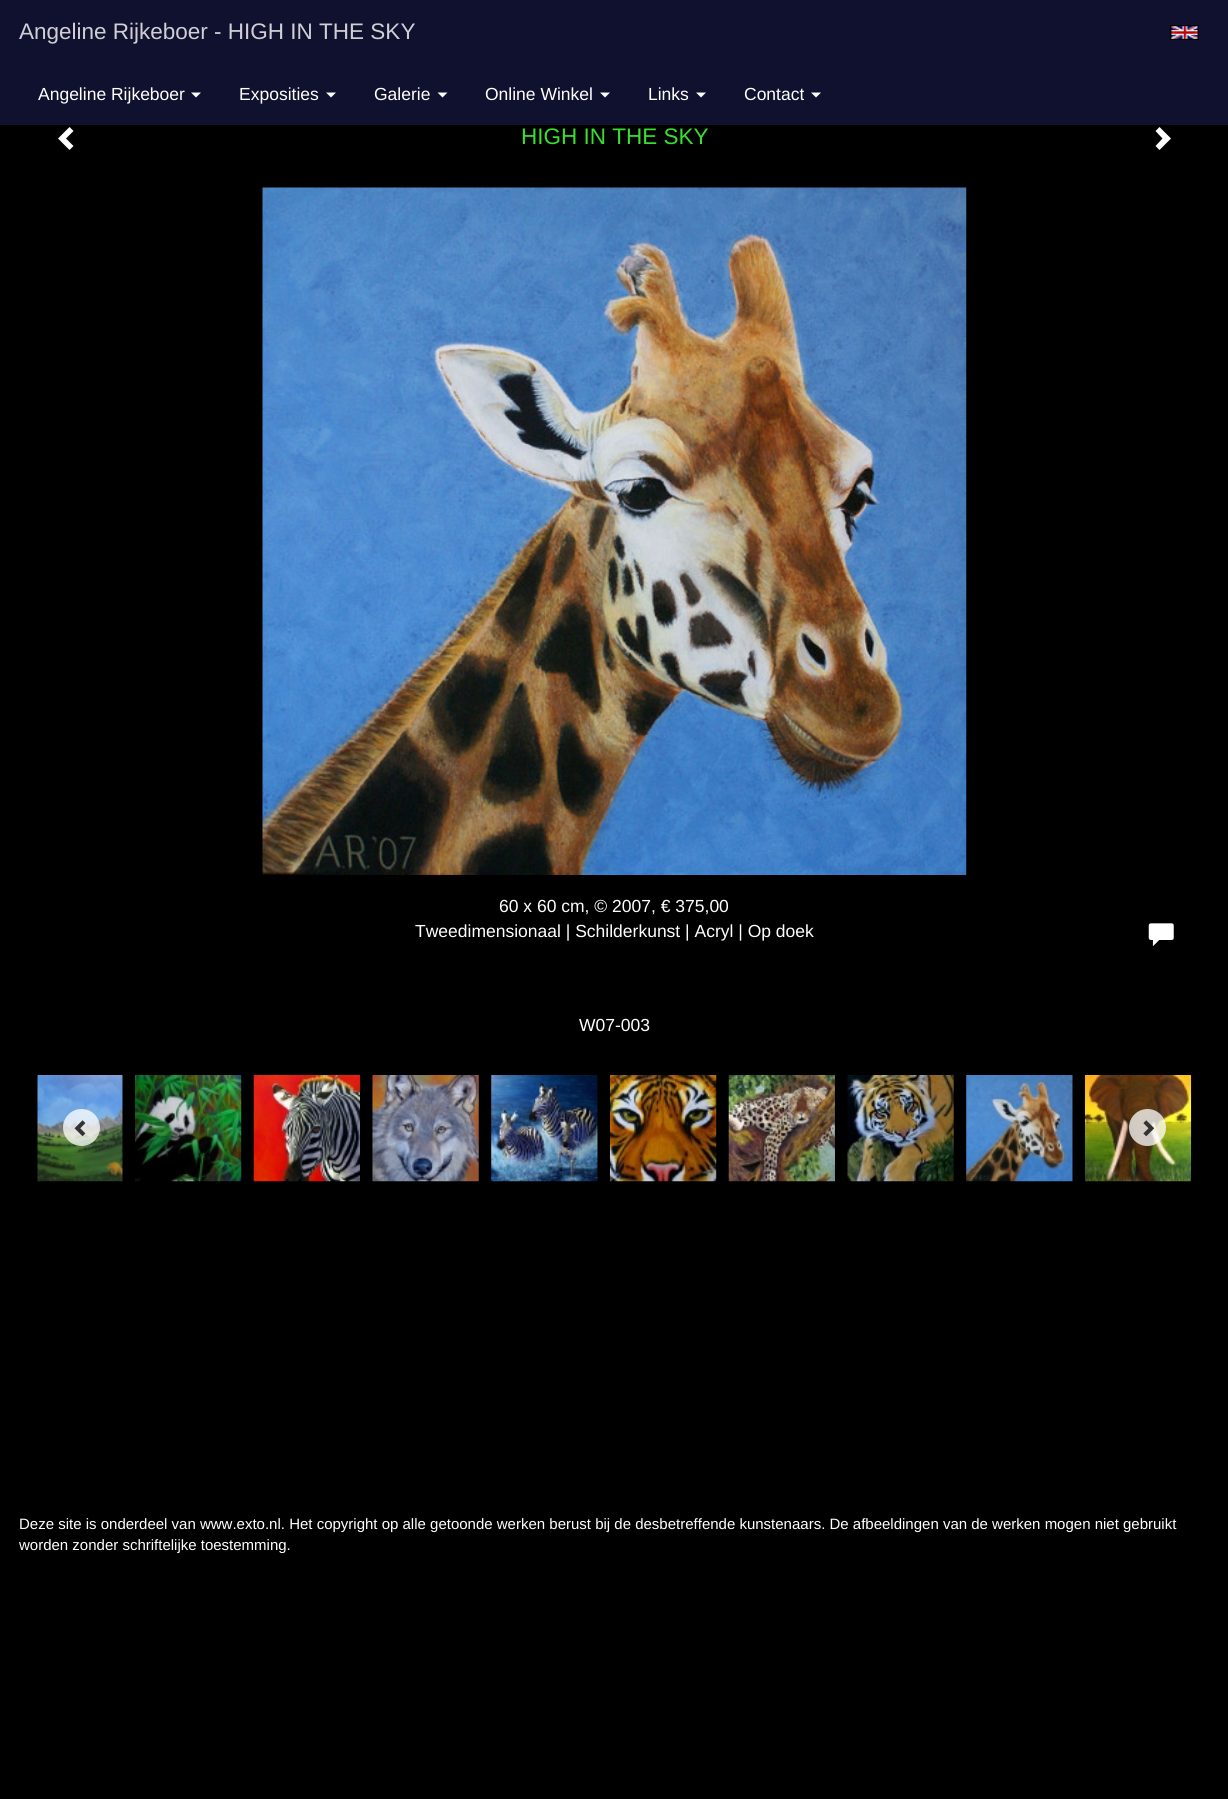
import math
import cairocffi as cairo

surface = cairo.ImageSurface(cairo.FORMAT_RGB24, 1228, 1799)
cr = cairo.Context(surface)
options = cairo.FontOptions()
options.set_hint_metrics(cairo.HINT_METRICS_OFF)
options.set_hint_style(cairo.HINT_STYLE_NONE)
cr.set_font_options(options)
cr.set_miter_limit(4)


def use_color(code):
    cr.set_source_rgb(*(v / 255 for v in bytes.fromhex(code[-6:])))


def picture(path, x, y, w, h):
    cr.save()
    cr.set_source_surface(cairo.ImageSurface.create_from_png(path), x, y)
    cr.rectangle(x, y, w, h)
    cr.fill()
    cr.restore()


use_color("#000000")
cr.paint()
use_color("#0f112e")
cr.rectangle(0, 0, 1228, 125)
cr.fill()
cr.select_font_face("Liberation Sans")
cr.set_font_size(22.5)
use_color("#cfcfd5")
cr.move_to(19, 39)
cr.show_text("Angeline Rijkeboer - HIGH IN THE SKY")
picture("img1.png", 1170, 25, 29, 15)
cr.set_font_size(17.5)
use_color("#ffffff")
cr.move_to(38, 100)
cr.show_text("Angeline Rijkeboer")
cr.new_path()
cr.move_to(191, 92.5)
cr.line_to(201, 92.5)
cr.line_to(196, 97.5)
cr.close_path()
cr.fill()
cr.move_to(239, 100)
cr.show_text("Exposities")
cr.new_path()
cr.move_to(326, 92.5)
cr.line_to(336, 92.5)
cr.line_to(331, 97.5)
cr.close_path()
cr.fill()
cr.move_to(374, 100)
cr.show_text("Galerie")
cr.new_path()
cr.move_to(437.5, 92.5)
cr.line_to(447.5, 92.5)
cr.line_to(442.5, 97.5)
cr.close_path()
cr.fill()
cr.move_to(485, 100)
cr.show_text("Online Winkel")
cr.new_path()
cr.move_to(600, 92.5)
cr.line_to(610, 92.5)
cr.line_to(605, 97.5)
cr.close_path()
cr.fill()
cr.move_to(648, 100)
cr.show_text("Links")
cr.new_path()
cr.move_to(696, 92.5)
cr.line_to(706, 92.5)
cr.line_to(701, 97.5)
cr.close_path()
cr.fill()
cr.move_to(744, 100)
cr.show_text("Contact")
cr.new_path()
cr.move_to(811, 92.5)
cr.line_to(821, 92.5)
cr.line_to(816, 97.5)
cr.close_path()
cr.fill()
cr.new_path()
cr.move_to(73.5, 131)
cr.line_to(66, 138.5)
cr.line_to(73.5, 146)
cr.line_to(69.5, 150)
cr.line_to(58, 138.5)
cr.line_to(69.5, 127)
cr.close_path()
cr.fill()
cr.set_font_size(22.5)
use_color("#37e02e")
cr.move_to(521, 144)
cr.show_text("HIGH IN THE SKY")
use_color("#ffffff")
cr.new_path()
cr.move_to(1171, 138.5)
cr.line_to(1159.5, 150)
cr.line_to(1155.5, 146)
cr.line_to(1162.5, 138.5)
cr.line_to(1155.5, 131)
cr.line_to(1159.5, 127)
cr.close_path()
cr.fill()
picture("img2.png", 262, 187, 705, 688)
cr.set_font_size(17.5)
cr.move_to(499, 912)
cr.show_text("60 x 60 cm, © 2007, € 375,00")
cr.move_to(415, 937)
cr.show_text("Tweedimensionaal | Schilderkunst | Acryl | Op doek")
picture("img3.png", 1148, 923, 26, 23)
cr.move_to(579, 1031)
cr.show_text("W07-003")
picture("img4.png", 37, 1075, 86, 107)
picture("img5.png", 135, 1075, 107, 107)
picture("img6.png", 253, 1075, 107, 107)
picture("img7.png", 372, 1075, 107, 107)
picture("img8.png", 491, 1075, 107, 107)
picture("img9.png", 609, 1075, 108, 107)
picture("img10.png", 728, 1075, 107, 107)
picture("img11.png", 847, 1075, 107, 107)
picture("img12.png", 966, 1075, 107, 107)
picture("img13.png", 1084, 1075, 108, 107)
cr.set_source_rgba(1, 1, 1, 0.75)
cr.arc(81.5, 1127.5, 18.5, 0, 2 * math.pi)
cr.fill()
picture("img14.png", 74, 1120, 12, 17)
cr.arc(1147.5, 1127.5, 18.5, 0, 2 * math.pi)
cr.fill()
picture("img15.png", 1143, 1120, 12, 17)
cr.set_font_size(15)
use_color("#ffffff")
cr.move_to(19, 1529)
cr.show_text("Deze site is onderdeel van www.exto.nl. Het copyright op alle getoonde werken berust bij de desbetreffende kunstenaars. De afbeeldingen van de werken mogen niet gebruikt")
cr.move_to(19, 1550)
cr.show_text("worden zonder schriftelijke toestemming.")
surface.write_to_png("result.png")
